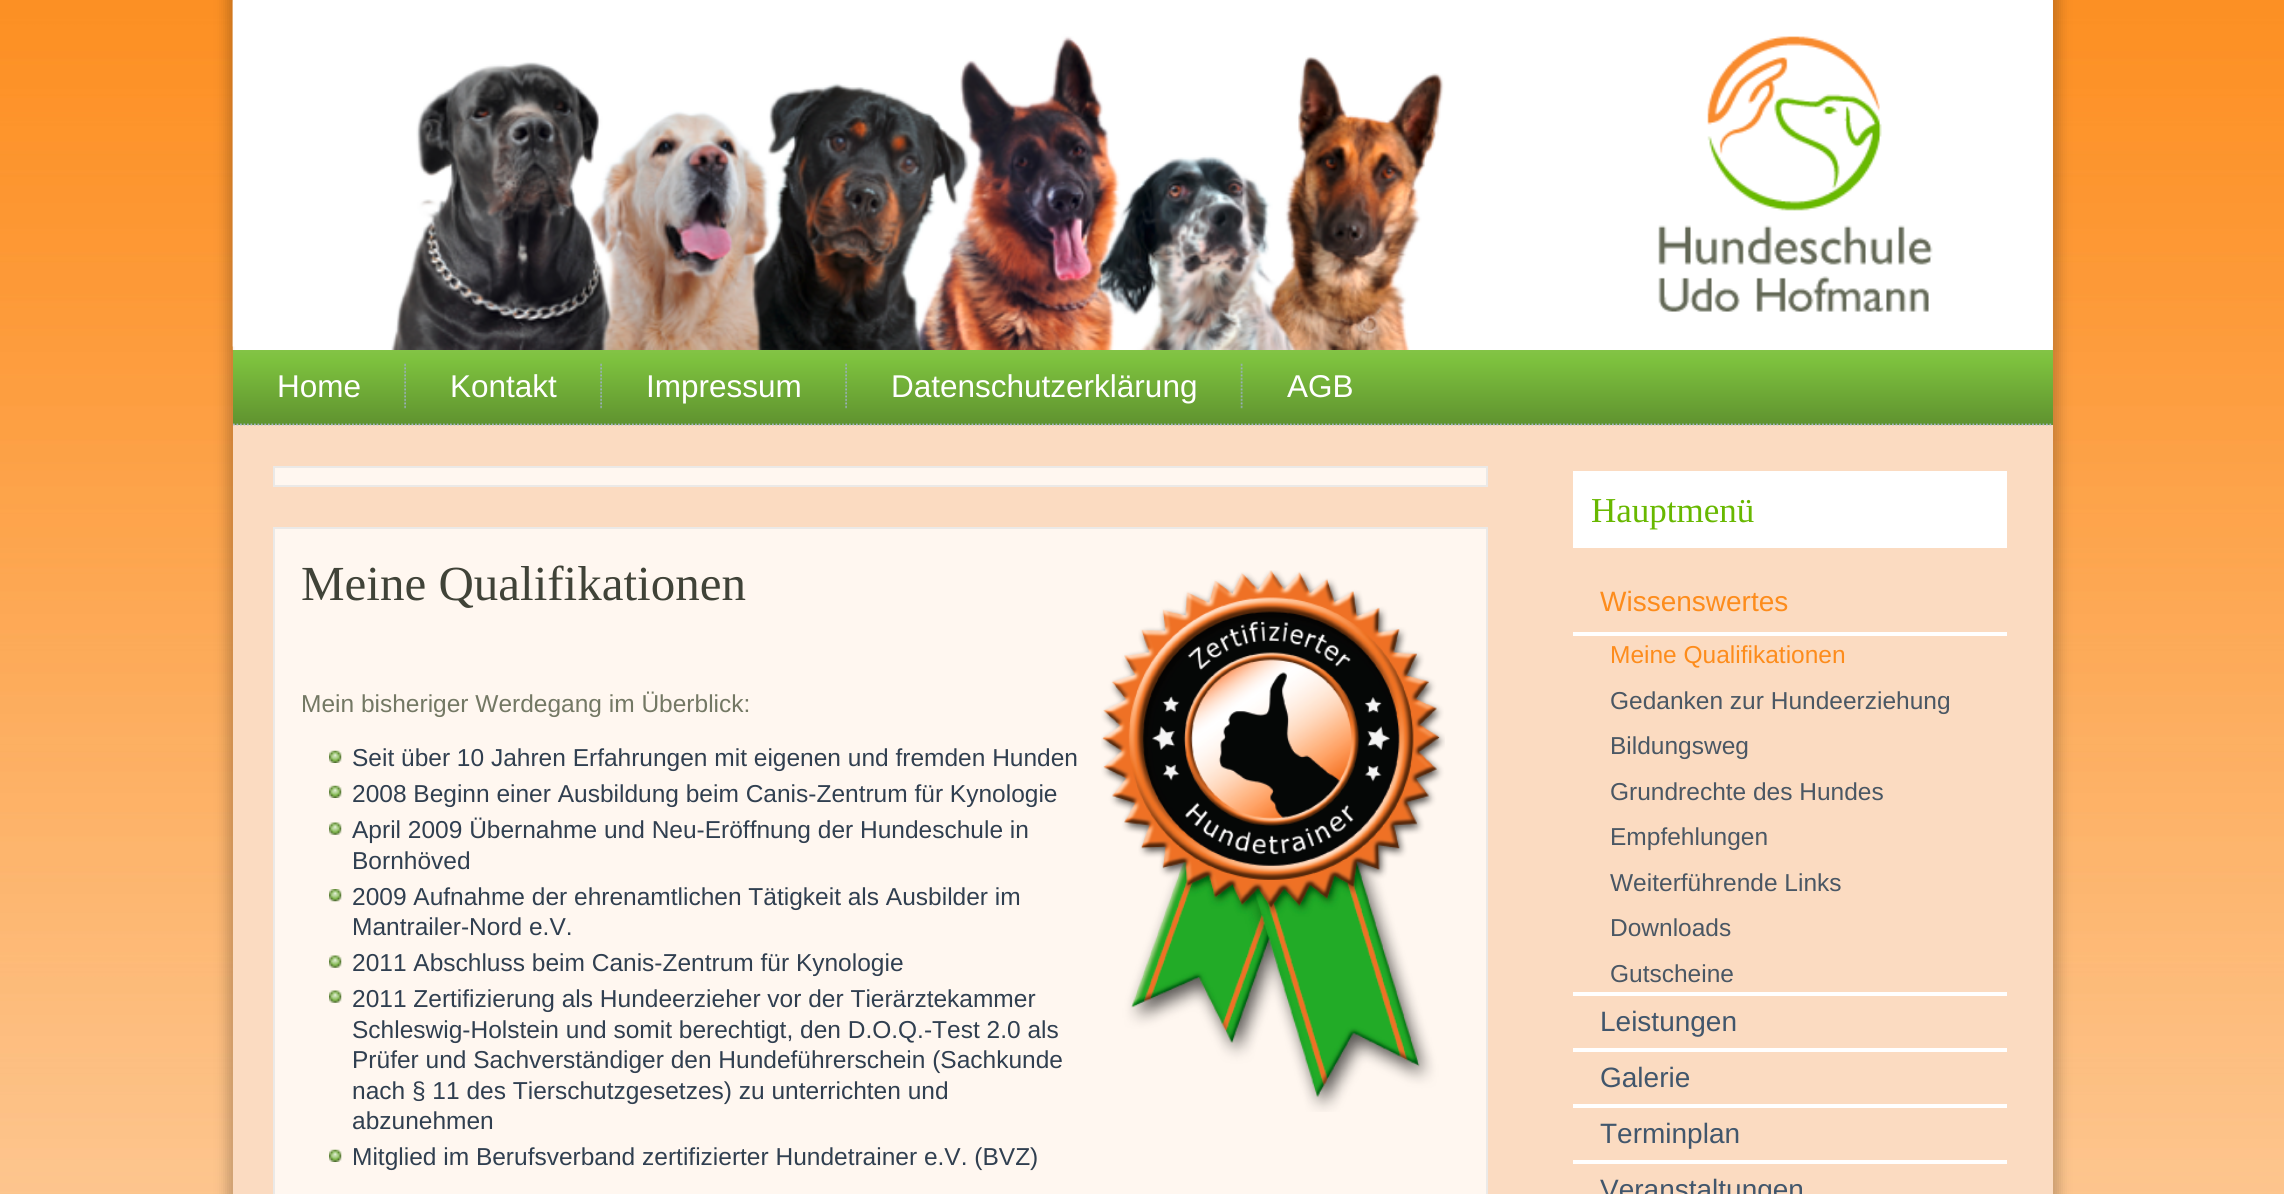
import math
import cairocffi as cairo

surface = cairo.ImageSurface(cairo.FORMAT_RGB24, 2284, 1194)
cr = cairo.Context(surface)
options = cairo.FontOptions()
options.set_hint_metrics(cairo.HINT_METRICS_OFF)
options.set_hint_style(cairo.HINT_STYLE_NONE)
cr.set_font_options(options)
cr.set_miter_limit(4)


def use_color(code):
    cr.set_source_rgb(*(v / 255 for v in bytes.fromhex(code[-6:])))


def round_rect(x, y, w, h, r):
    cr.new_sub_path()
    for i, (u, v) in enumerate([(x + w - r, y + h - r), (x + r, y + h - r), (x + r, y + r), (x + w - r, y + r)]):
        cr.arc(u, v, r, i * math.pi / 2, (i + 1) * math.pi / 2)
    cr.close_path()


def shadow(x, y, w, h, r, blur, alpha):
    cr.push_group_with_content(cairo.CONTENT_ALPHA)
    cr.set_operator(cairo.OPERATOR_SOURCE)
    for i in range(15, -16, -2):
        e = blur * i / 6
        if min(w, h) + 2 * e > 0:
            cr.set_source_rgba(0, 0, 0, alpha * math.erfc((i - 1) / 8.5) / 2)
            round_rect(x - e, y - e, w + 2 * e, h + 2 * e, max(0, min(r + e + blur * .6, min(w, h) / 2 + e)))
            cr.fill()
    cr.mask(cr.pop_group())


def picture(path, x, y, w, h):
    cr.save()
    cr.set_source_surface(cairo.ImageSurface.create_from_png(path), x, y)
    cr.rectangle(x, y, w, h)
    cr.fill()
    cr.restore()


use_color("#ffffff")
cr.paint()
picture("img1.png", 0, 0, 2284, 1194)
use_color("#000000")
shadow(226, -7, 1834, 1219, 0, 6, 0.2)
use_color("#fbdbc1")
cr.rectangle(233, 0, 1820, 1194)
cr.fill()
picture("img2.png", 232, 0, 1821, 350)
gradient = cairo.LinearGradient(1143, 350, 1143, 425)
gradient.add_color_stop_rgba(0, 0.514, 0.765, 0.275, 1)
gradient.add_color_stop_rgba(0.14, 0.49, 0.757, 0.243, 1)
gradient.add_color_stop_rgba(1, 0.373, 0.573, 0.184, 1)
cr.set_source(gradient)
cr.rectangle(233, 350, 1820, 75)
cr.fill()
cr.new_path()
cr.move_to(233, 424.5)
cr.line_to(2053, 424.5)
use_color("#a3b4c8")
cr.set_line_width(1.8)
cr.set_dash([1.75, 1.75])
cr.stroke()
cr.select_font_face("Liberation Sans")
cr.set_font_size(31.5)
use_color("#ffffff")
cr.move_to(277, 397)
cr.show_text("Home")
picture("img3.png", 404, 363, 2, 46)
cr.move_to(450, 397)
cr.show_text("Kontakt")
picture("img3.png", 600, 363, 2, 46)
cr.move_to(646, 397)
cr.show_text("Impressum")
picture("img3.png", 845, 363, 2, 46)
cr.move_to(891, 397)
cr.show_text("Datenschutzerklärung")
picture("img4.png", 1240, 363, 3, 46)
cr.move_to(1287, 397)
cr.show_text("AGB")
use_color("#fff7f0")
cr.rectangle(274, 467, 1213, 19)
cr.fill_preserve()
use_color("#ebe9e7")
cr.set_line_width(2)
cr.set_dash([])
cr.stroke()
use_color("#fff7f0")
cr.rectangle(274, 528, 1213, 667)
cr.fill_preserve()
use_color("#ebe9e7")
cr.stroke()
cr.select_font_face("Liberation Serif")
cr.set_font_size(49)
use_color("#404338")
cr.move_to(301, 600)
cr.show_text("Meine Qualifikationen")
picture("img5.png", 1101, 570, 344, 542)
cr.select_font_face("Liberation Sans")
cr.set_font_size(24.5)
use_color("#737864")
cr.move_to(301, 712)
cr.show_text("Mein bisheriger Werdegang im Überblick:")
picture("img6.png", 329, 750, 13, 13)
use_color("#303f50")
cr.move_to(352, 766)
cr.show_text("Seit über 10 Jahren Erfahrungen mit eigenen und fremden Hunden")
picture("img6.png", 329, 785, 13, 13)
cr.move_to(352, 802)
cr.show_text("2008 Beginn einer Ausbildung beim Canis-Zentrum für Kynologie")
picture("img7.png", 329, 822, 13, 13)
cr.move_to(352, 838)
cr.show_text("April 2009 Übernahme und Neu-Eröffnung der Hundeschule in")
cr.move_to(352, 869)
cr.show_text("Bornhöved")
picture("img8.png", 329, 889, 13, 13)
cr.move_to(352, 905)
cr.show_text("2009 Aufnahme der ehrenamtlichen Tätigkeit als Ausbilder im")
cr.move_to(352, 935)
cr.show_text("Mantrailer-Nord e.V.")
picture("img7.png", 329, 955, 13, 13)
cr.move_to(352, 971)
cr.show_text("2011 Abschluss beim Canis-Zentrum für Kynologie")
picture("img7.png", 329, 990, 13, 13)
cr.move_to(352, 1007)
cr.show_text("2011 Zertifizierung als Hundeerzieher vor der Tierärztekammer")
cr.move_to(352, 1038)
cr.show_text("Schleswig-Holstein und somit berechtigt, den D.O.Q.-Test 2.0 als")
cr.move_to(352, 1068)
cr.show_text("Prüfer und Sachverständiger den Hundeführerschein (Sachkunde")
cr.move_to(352, 1099)
cr.show_text("nach § 11 des Tierschutzgesetzes) zu unterrichten und")
cr.move_to(352, 1129)
cr.show_text("abzunehmen")
picture("img6.png", 329, 1149, 13, 13)
cr.move_to(352, 1165)
cr.show_text("Mitglied im Berufsverband zertifizierter Hundetrainer e.V. (BVZ)")
use_color("#ffffff")
cr.rectangle(1573, 471, 434, 77)
cr.fill()
cr.select_font_face("Liberation Serif")
cr.set_font_size(35)
use_color("#68b800")
cr.move_to(1591, 522)
cr.show_text("Hauptmenü")
cr.select_font_face("Liberation Sans")
cr.set_font_size(28)
use_color("#fd8c1c")
cr.move_to(1600, 611)
cr.show_text("Wissenswertes")
use_color("#ffffff")
cr.rectangle(1573, 632, 434, 4)
cr.fill()
cr.set_font_size(24.5)
use_color("#fd8c1c")
cr.move_to(1610, 663)
cr.show_text("Meine Qualifikationen")
use_color("#4a5764")
cr.move_to(1610, 709)
cr.show_text("Gedanken zur Hundeerziehung")
cr.move_to(1610, 754)
cr.show_text("Bildungsweg")
cr.move_to(1610, 800)
cr.show_text("Grundrechte des Hundes")
cr.move_to(1610, 845)
cr.show_text("Empfehlungen")
cr.move_to(1610, 891)
cr.show_text("Weiterführende Links")
cr.move_to(1610, 936)
cr.show_text("Downloads")
cr.move_to(1610, 982)
cr.show_text("Gutscheine")
use_color("#ffffff")
cr.rectangle(1573, 992, 434, 4)
cr.fill()
cr.set_font_size(28)
use_color("#41566c")
cr.move_to(1600, 1031)
cr.show_text("Leistungen")
use_color("#ffffff")
cr.rectangle(1573, 1048, 434, 4)
cr.fill()
use_color("#41566c")
cr.move_to(1600, 1087)
cr.show_text("Galerie")
use_color("#ffffff")
cr.rectangle(1573, 1104, 434, 4)
cr.fill()
use_color("#41566c")
cr.move_to(1600, 1143)
cr.show_text("Terminplan")
use_color("#ffffff")
cr.rectangle(1573, 1160, 434, 4)
cr.fill()
use_color("#41566c")
cr.move_to(1600, 1199)
cr.show_text("Veranstaltungen")
surface.write_to_png("result.png")
